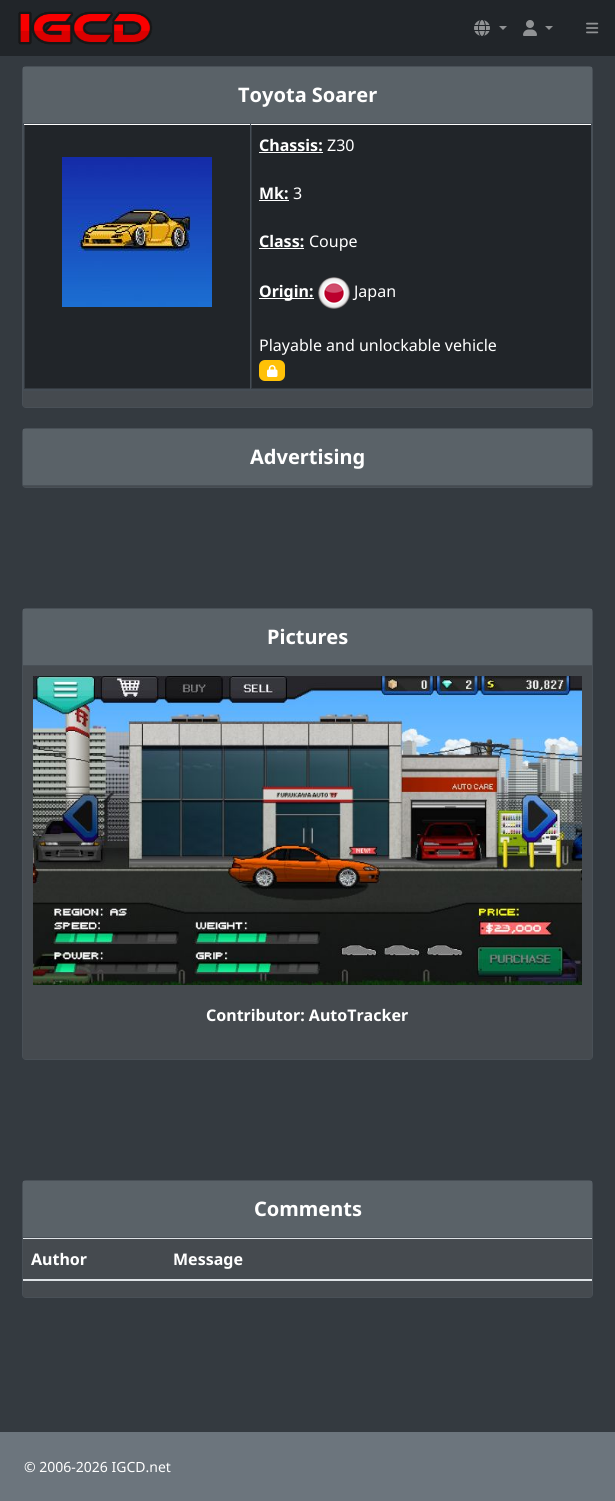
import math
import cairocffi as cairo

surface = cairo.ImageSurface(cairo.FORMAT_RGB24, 615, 1501)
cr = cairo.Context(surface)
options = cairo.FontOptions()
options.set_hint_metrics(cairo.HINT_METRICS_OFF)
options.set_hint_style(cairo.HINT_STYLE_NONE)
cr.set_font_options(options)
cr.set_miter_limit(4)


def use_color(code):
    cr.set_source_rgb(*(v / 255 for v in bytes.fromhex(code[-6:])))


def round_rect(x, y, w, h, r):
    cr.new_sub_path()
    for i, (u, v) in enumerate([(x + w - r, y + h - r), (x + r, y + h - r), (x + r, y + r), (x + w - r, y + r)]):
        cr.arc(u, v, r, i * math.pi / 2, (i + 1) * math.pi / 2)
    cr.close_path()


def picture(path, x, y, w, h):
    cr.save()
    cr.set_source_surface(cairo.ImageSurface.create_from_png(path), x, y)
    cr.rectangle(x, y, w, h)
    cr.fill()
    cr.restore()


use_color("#343a40")
cr.paint()
use_color("#212529")
cr.rectangle(0, 0, 615, 56)
cr.fill()
picture("img1.png", 18, 11, 135, 34)
picture("img2.png", 474, 20, 16, 16)
use_color("#909294")
cr.new_path()
cr.move_to(499, 26)
cr.line_to(507, 26)
cr.line_to(503, 30)
cr.close_path()
cr.fill()
picture("img3.png", 523, 20, 14, 16)
cr.new_path()
cr.move_to(545, 26)
cr.line_to(553, 26)
cr.line_to(549, 30)
cr.close_path()
cr.fill()
picture("img4.png", 586, 22, 13, 12)
round_rect(22.5, 66.5, 570, 341, 3.5)
use_color("#495057")
cr.set_line_width(1)
cr.stroke()
use_color("#5a6268")
cr.rectangle(23, 67, 569, 56)
cr.fill()
use_color("#495057")
cr.rectangle(23, 123, 569, 1)
cr.fill()
cr.select_font_face("Noto Sans", cairo.FONT_SLANT_NORMAL, cairo.FONT_WEIGHT_BOLD)
cr.set_font_size(20)
use_color("#ffffff")
cr.move_to(238, 102)
cr.show_text("Toyota Soarer")
use_color("#454a4f")
cr.rectangle(23, 391, 569, 16)
cr.fill()
use_color("#ffffff")
cr.rectangle(23, 124, 569, 1)
cr.fill()
use_color("#212529")
cr.rectangle(25, 125, 225, 263)
cr.fill()
use_color("#454d55")
cr.rectangle(23, 124, 1, 267)
cr.fill()
picture("img5.png", 62, 157, 150, 150)
use_color("#212529")
cr.rectangle(252, 125, 339, 263)
cr.fill()
use_color("#454d55")
cr.rectangle(591, 124, 1, 267)
cr.fill()
cr.rectangle(250, 124, 1, 267)
cr.fill()
cr.rectangle(23, 389, 569, 2)
cr.fill()
cr.set_font_size(16)
use_color("#ffffff")
cr.move_to(259, 151)
cr.show_text("Chassis:")
cr.rectangle(259, 152, 64, 1)
cr.fill()
cr.select_font_face("Noto Sans")
cr.move_to(327, 151)
cr.show_text("Z30")
cr.select_font_face("Noto Sans", cairo.FONT_SLANT_NORMAL, cairo.FONT_WEIGHT_BOLD)
cr.move_to(259, 199)
cr.show_text("Mk:")
cr.rectangle(259, 200, 30, 1)
cr.fill()
cr.select_font_face("Noto Sans")
cr.move_to(293, 199)
cr.show_text("3")
cr.select_font_face("Noto Sans", cairo.FONT_SLANT_NORMAL, cairo.FONT_WEIGHT_BOLD)
cr.move_to(259, 247)
cr.show_text("Class:")
cr.rectangle(259, 248, 45, 1)
cr.fill()
cr.select_font_face("Noto Sans")
cr.move_to(309, 247)
cr.show_text("Coupe")
cr.rectangle(259, 298, 55, 1)
cr.fill()
cr.select_font_face("Noto Sans", cairo.FONT_SLANT_NORMAL, cairo.FONT_WEIGHT_BOLD)
cr.move_to(259, 297)
cr.show_text("Origin:")
picture("img6.png", 318, 277, 32, 32)
cr.select_font_face("Noto Sans")
cr.move_to(354, 297)
cr.show_text("Japan")
cr.move_to(259, 351)
cr.show_text("Playable and unlockable vehicle")
use_color("#ffc107")
round_rect(259, 360, 26, 21, 6)
cr.fill()
picture("img7.png", 267, 365, 11, 12)
round_rect(22.5, 428.5, 570, 59, 3.5)
use_color("#495057")
cr.stroke()
use_color("#5a6268")
cr.rectangle(23, 429, 569, 56)
cr.fill()
use_color("#495057")
cr.rectangle(23, 485, 569, 1)
cr.fill()
cr.select_font_face("Noto Sans", cairo.FONT_SLANT_NORMAL, cairo.FONT_WEIGHT_BOLD)
cr.set_font_size(20)
use_color("#ffffff")
cr.move_to(250, 464)
cr.show_text("Advertising")
use_color("#454a4f")
cr.rectangle(23, 486, 569, 1)
cr.fill()
round_rect(22.5, 608.5, 570, 451, 3.5)
use_color("#495057")
cr.stroke()
use_color("#5a6268")
cr.rectangle(23, 609, 569, 56)
cr.fill()
use_color("#495057")
cr.rectangle(23, 665, 569, 1)
cr.fill()
use_color("#ffffff")
cr.move_to(267, 644)
cr.show_text("Pictures")
use_color("#454a4f")
cr.rectangle(23, 666, 569, 393)
cr.fill()
picture("img8.png", 33, 676, 549, 309)
cr.set_font_size(16)
use_color("#ffffff")
cr.move_to(206, 1021)
cr.show_text("Contributor: AutoTracker")
round_rect(22.5, 1180.5, 570, 117, 3.5)
use_color("#495057")
cr.stroke()
use_color("#5a6268")
cr.rectangle(23, 1181, 569, 56)
cr.fill()
use_color("#495057")
cr.rectangle(23, 1237, 569, 1)
cr.fill()
cr.set_font_size(20)
use_color("#ffffff")
cr.move_to(254, 1216)
cr.show_text("Comments")
use_color("#454a4f")
cr.rectangle(23, 1239, 569, 58)
cr.fill()
cr.set_font_size(16)
use_color("#ffffff")
cr.move_to(31, 1265)
cr.show_text("Author")
use_color("#dee2e6")
cr.rectangle(23, 1238, 569, 1)
cr.fill()
cr.rectangle(23, 1279, 569, 2)
cr.fill()
use_color("#ffffff")
cr.move_to(173, 1265)
cr.show_text("Message")
use_color("#6c757d")
cr.rectangle(0, 1432, 615, 69)
cr.fill()
cr.select_font_face("Noto Sans")
cr.set_font_size(14)
use_color("#ffffff")
cr.move_to(24, 1472)
cr.show_text("© 2006-2026 IGCD.net")
surface.write_to_png("result.png")
